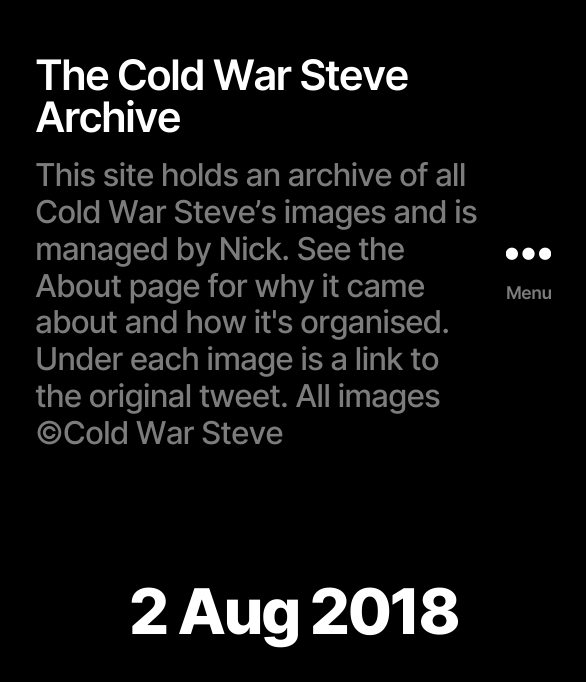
import math
import cairocffi as cairo

surface = cairo.ImageSurface(cairo.FORMAT_RGB24, 586, 682)
cr = cairo.Context(surface)
options = cairo.FontOptions()
options.set_hint_metrics(cairo.HINT_METRICS_OFF)
options.set_hint_style(cairo.HINT_STYLE_NONE)
cr.set_font_options(options)
cr.set_miter_limit(4)


def use_color(code):
    cr.set_source_rgb(*(v / 255 for v in bytes.fromhex(code[-6:])))


def spaced_text(x, y, s, letter, word):
    cr.move_to(x, y)
    for ch in s:
        cr.show_text(ch)
        cr.rel_move_to(letter + word * (ch == ' '), 0)


def picture(path, x, y, w, h):
    cr.save()
    cr.set_source_surface(cairo.ImageSurface.create_from_png(path), x, y)
    cr.rectangle(x, y, w, h)
    cr.fill()
    cr.restore()


use_color("#000000")
cr.paint()
cr.select_font_face("Inter SemiBold")
cr.set_font_size(42)
use_color("#ffffff")
spaced_text(35, 90, "The Cold War Steve", -1.75, 0)
spaced_text(35, 132, "Archive", -1.75, 0)
cr.select_font_face("Inter Medium")
cr.set_font_size(31.5)
use_color("#7c7c7c")
spaced_text(35, 186, "This site holds an archive of all", -1, 0)
spaced_text(35, 223, "Cold War Steve’s images and is", -1, 0)
spaced_text(35, 260, "managed by Nick. See the", -1, 0)
spaced_text(35, 297, "About page for why it came", -1, 0)
spaced_text(35, 333, "about and how it's organised.", -1, 0)
spaced_text(35, 370, "Under each image is a link to", -1, 0)
spaced_text(35, 407, "the original tweet. All images", -1, 0)
spaced_text(35, 444, "©Cold War Steve", -1, 0)
picture("img1.png", 506, 247, 45, 13)
cr.select_font_face("Inter SemiBold")
cr.set_font_size(17.5)
spaced_text(506, 299, "Menu", -0.5, 0)
cr.select_font_face("Inter ExtraBold")
cr.set_font_size(63)
use_color("#ffffff")
spaced_text(129, 634, "2 Aug 2018", -2.6, 0)
surface.write_to_png("result.png")
